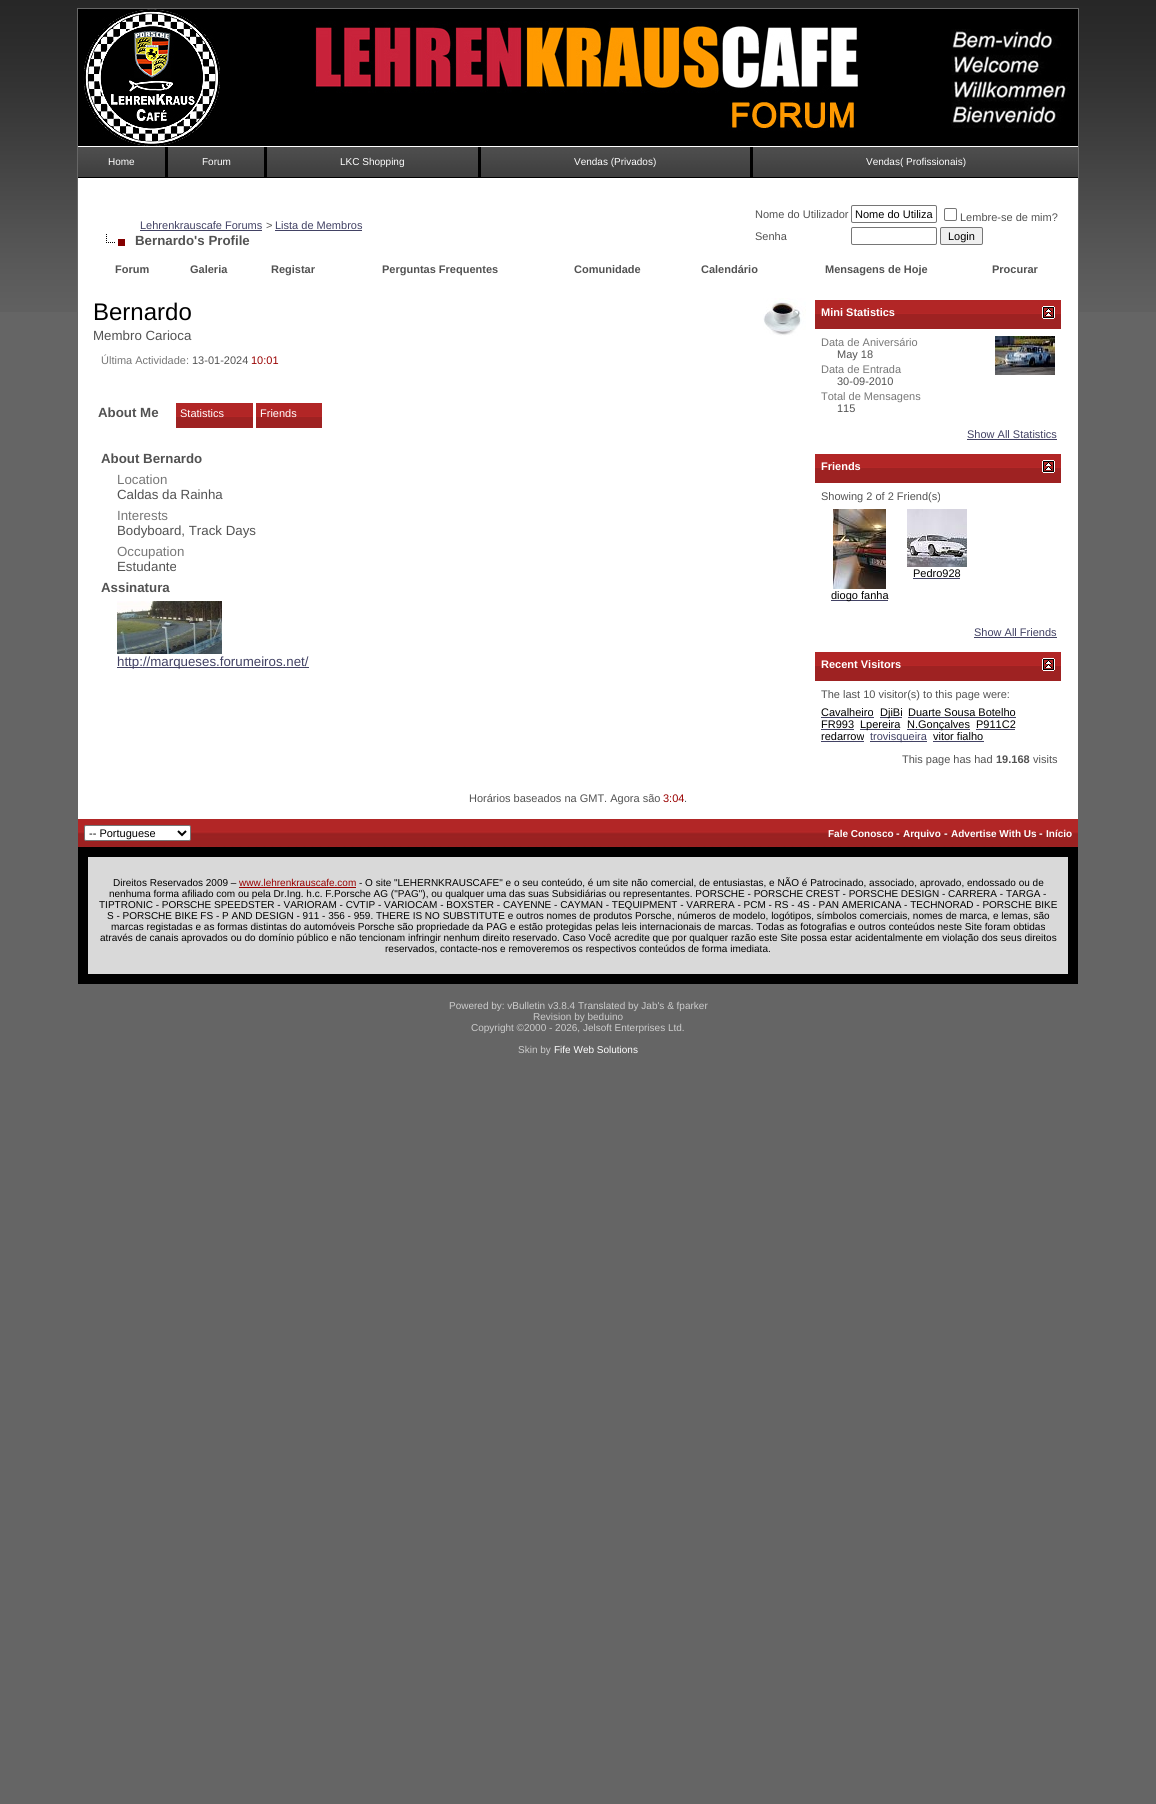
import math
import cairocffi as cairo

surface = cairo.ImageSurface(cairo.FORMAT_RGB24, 1156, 1804)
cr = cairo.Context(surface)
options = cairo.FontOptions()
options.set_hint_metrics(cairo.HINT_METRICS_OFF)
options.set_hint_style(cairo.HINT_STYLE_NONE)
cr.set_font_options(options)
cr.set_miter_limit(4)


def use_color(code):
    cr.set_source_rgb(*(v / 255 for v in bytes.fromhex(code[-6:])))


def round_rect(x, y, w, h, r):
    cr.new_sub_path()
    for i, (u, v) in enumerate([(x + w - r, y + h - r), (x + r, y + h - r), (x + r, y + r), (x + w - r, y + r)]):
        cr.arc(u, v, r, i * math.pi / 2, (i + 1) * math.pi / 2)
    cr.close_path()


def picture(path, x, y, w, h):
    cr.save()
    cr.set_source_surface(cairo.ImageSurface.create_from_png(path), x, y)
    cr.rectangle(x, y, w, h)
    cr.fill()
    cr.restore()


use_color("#656565")
cr.paint()
picture("img1.png", 0, 0, 1156, 312)
use_color("#666666")
cr.rectangle(77, 8, 1002, 304)
cr.fill()
use_color("#000000")
cr.rectangle(78, 9, 1000, 137)
cr.fill()
picture("img2.png", 83, 9, 137, 137)
picture("img3.png", 315, 21, 543, 110)
picture("img4.png", 951, 29, 119, 99)
picture("img5.png", 78, 146, 1000, 32)
cr.select_font_face("Liberation Sans")
cr.set_font_size(10)
use_color("#ffffff")
cr.move_to(108, 165)
cr.show_text("Home")
use_color("#000000")
cr.rectangle(165, 147, 3, 30)
cr.fill()
use_color("#ffffff")
cr.move_to(202, 165)
cr.show_text("Forum")
use_color("#000000")
cr.rectangle(264, 147, 3, 30)
cr.fill()
use_color("#ffffff")
cr.move_to(340, 165)
cr.show_text("LKC Shopping")
use_color("#000000")
cr.rectangle(478, 147, 3, 30)
cr.fill()
use_color("#ffffff")
cr.move_to(574, 165)
cr.show_text("Vendas (Privados)")
use_color("#000000")
cr.rectangle(750, 147, 3, 30)
cr.fill()
use_color("#ffffff")
cr.move_to(866, 165)
cr.show_text("Vendas( Profissionais)")
cr.rectangle(78, 178, 1000, 641)
cr.fill()
cr.set_font_size(11)
use_color("#424264")
cr.move_to(140, 229)
cr.show_text("Lehrenkrauscafe Forums")
cr.rectangle(140, 230, 122, 1)
cr.fill()
use_color("#525252")
cr.move_to(266, 229)
cr.show_text(">")
use_color("#424264")
cr.move_to(275, 229)
cr.show_text("Lista de Membros")
cr.rectangle(275, 230, 87, 1)
cr.fill()
picture("img6.png", 106, 234, 19, 12)
cr.select_font_face("Liberation Sans", cairo.FONT_SLANT_NORMAL, cairo.FONT_WEIGHT_BOLD)
cr.set_font_size(13.3)
use_color("#525252")
cr.move_to(135, 245)
cr.show_text("Bernardo's Profile")
cr.select_font_face("Liberation Sans")
cr.set_font_size(11)
cr.move_to(755, 218)
cr.show_text("Nome do Utilizador")
round_rect(851.5, 205.5, 85, 17, 1.5)
use_color("#767676")
cr.set_line_width(1)
cr.stroke()
use_color("#000000")
cr.move_to(855, 218)
cr.show_text("Nome do Utiliza")
round_rect(944.5, 208.5, 12, 12, 1.5)
use_color("#767676")
cr.stroke()
use_color("#525252")
cr.move_to(960, 221)
cr.show_text("Lembre-se de mim?")
cr.move_to(755, 240)
cr.show_text("Senha")
round_rect(851.5, 227.5, 85, 17, 1.5)
use_color("#767676")
cr.stroke()
use_color("#efefef")
round_rect(940.5, 227.5, 42, 17, 1.5)
cr.fill_preserve()
use_color("#767676")
cr.stroke()
use_color("#000000")
cr.move_to(948, 240)
cr.show_text("Login")
cr.select_font_face("Liberation Sans", cairo.FONT_SLANT_NORMAL, cairo.FONT_WEIGHT_BOLD)
use_color("#525252")
cr.move_to(115, 273)
cr.show_text("Forum")
cr.move_to(190, 273)
cr.show_text("Galeria")
cr.move_to(271, 273)
cr.show_text("Registar")
cr.move_to(382, 273)
cr.show_text("Perguntas Frequentes")
cr.move_to(574, 273)
cr.show_text("Comunidade")
cr.move_to(701, 273)
cr.show_text("Calendário")
cr.move_to(825, 273)
cr.show_text("Mensagens de Hoje")
cr.move_to(992, 273)
cr.show_text("Procurar")
cr.select_font_face("Liberation Sans")
cr.set_font_size(24)
use_color("#000000")
cr.move_to(93, 320)
cr.show_text("Bernardo")
picture("img7.png", 763, 298, 43, 38)
cr.set_font_size(13.3)
use_color("#525252")
cr.move_to(93, 340)
cr.show_text("Membro Carioca")
cr.set_font_size(11)
use_color("#777777")
cr.move_to(101, 364)
cr.show_text("Última Actividade:")
use_color("#525252")
cr.move_to(192, 364)
cr.show_text("13-01-2024")
use_color("#990000")
cr.move_to(251, 364)
cr.show_text("10:01")
cr.select_font_face("Liberation Sans", cairo.FONT_SLANT_NORMAL, cairo.FONT_WEIGHT_BOLD)
cr.set_font_size(13.3)
use_color("#525252")
cr.move_to(98, 417)
cr.show_text("About Me")
picture("img8.png", 176, 403, 77, 25)
cr.select_font_face("Liberation Sans")
cr.set_font_size(11)
use_color("#ffffff")
cr.move_to(180, 417)
cr.show_text("Statistics")
picture("img9.png", 256, 403, 66, 25)
cr.move_to(260, 417)
cr.show_text("Friends")
cr.select_font_face("Liberation Sans", cairo.FONT_SLANT_NORMAL, cairo.FONT_WEIGHT_BOLD)
cr.set_font_size(13.3)
use_color("#525252")
cr.move_to(101, 463)
cr.show_text("About Bernardo")
cr.select_font_face("Liberation Sans")
use_color("#777777")
cr.move_to(117, 484)
cr.show_text("Location")
use_color("#525252")
cr.move_to(117, 499)
cr.show_text("Caldas da Rainha")
use_color("#777777")
cr.move_to(117, 520)
cr.show_text("Interests")
use_color("#525252")
cr.move_to(117, 535)
cr.show_text("Bodyboard, Track Days")
use_color("#777777")
cr.move_to(117, 556)
cr.show_text("Occupation")
use_color("#525252")
cr.move_to(117, 571)
cr.show_text("Estudante")
cr.select_font_face("Liberation Sans", cairo.FONT_SLANT_NORMAL, cairo.FONT_WEIGHT_BOLD)
cr.move_to(101, 592)
cr.show_text("Assinatura")
picture("img10.png", 117, 601, 105, 53)
use_color("#424264")
cr.rectangle(117, 667, 192, 1)
cr.fill()
cr.select_font_face("Liberation Sans")
cr.move_to(117, 666)
cr.show_text("http://marqueses.forumeiros.net/")
picture("img11.png", 815, 300, 246, 29)
cr.select_font_face("Liberation Sans", cairo.FONT_SLANT_NORMAL, cairo.FONT_WEIGHT_BOLD)
cr.set_font_size(11)
use_color("#ffffff")
cr.move_to(821, 316)
cr.show_text("Mini Statistics")
picture("img12.png", 1042, 306, 13, 13)
cr.select_font_face("Liberation Sans")
use_color("#777777")
cr.move_to(821, 346)
cr.show_text("Data de Aniversário")
use_color("#525252")
cr.move_to(837, 358)
cr.show_text("May 18")
use_color("#777777")
cr.move_to(821, 373)
cr.show_text("Data de Entrada")
use_color("#525252")
cr.move_to(837, 385)
cr.show_text("30-09-2010")
use_color("#777777")
cr.move_to(821, 400)
cr.show_text("Total de Mensagens")
use_color("#525252")
cr.move_to(837, 412)
cr.show_text("115")
picture("img13.png", 995, 336, 60, 39)
use_color("#424264")
cr.move_to(967, 438)
cr.show_text("Show All Statistics")
cr.rectangle(967, 439, 90, 1)
cr.fill()
picture("img11.png", 815, 454, 246, 29)
cr.select_font_face("Liberation Sans", cairo.FONT_SLANT_NORMAL, cairo.FONT_WEIGHT_BOLD)
use_color("#ffffff")
cr.move_to(821, 470)
cr.show_text("Friends")
picture("img12.png", 1042, 460, 13, 13)
cr.select_font_face("Liberation Sans")
use_color("#525252")
cr.move_to(821, 500)
cr.show_text("Showing 2 of 2 Friend(s)")
picture("img14.png", 907, 509, 60, 58)
use_color("#000000")
cr.move_to(913, 577)
cr.show_text("Pedro928")
use_color("#424264")
cr.rectangle(913, 578, 47, 1)
cr.fill()
picture("img15.png", 833, 509, 53, 80)
cr.rectangle(831, 600, 57, 1)
cr.fill()
use_color("#000000")
cr.move_to(831, 599)
cr.show_text("diogo fanha")
use_color("#424264")
cr.move_to(974, 636)
cr.show_text("Show All Friends")
cr.rectangle(974, 637, 83, 1)
cr.fill()
picture("img11.png", 815, 652, 246, 29)
cr.select_font_face("Liberation Sans", cairo.FONT_SLANT_NORMAL, cairo.FONT_WEIGHT_BOLD)
use_color("#ffffff")
cr.move_to(821, 668)
cr.show_text("Recent Visitors")
picture("img12.png", 1042, 658, 13, 13)
cr.select_font_face("Liberation Sans")
use_color("#525252")
cr.move_to(821, 698)
cr.show_text("The last 10 visitor(s) to this page were:")
use_color("#000000")
cr.move_to(821, 716)
cr.show_text("Cavalheiro")
use_color("#424264")
cr.rectangle(821, 717, 53, 1)
cr.fill()
cr.rectangle(880, 717, 22, 1)
cr.fill()
use_color("#000000")
cr.move_to(880, 716)
cr.show_text("DjiBi")
cr.move_to(908, 716)
cr.show_text("Duarte Sousa Botelho")
use_color("#424264")
cr.rectangle(908, 717, 108, 1)
cr.fill()
use_color("#000000")
cr.move_to(821, 728)
cr.show_text("FR993")
use_color("#424264")
cr.rectangle(821, 729, 33, 1)
cr.fill()
cr.rectangle(860, 729, 40, 1)
cr.fill()
use_color("#000000")
cr.move_to(860, 728)
cr.show_text("Lpereira")
use_color("#424264")
cr.rectangle(907, 729, 63, 1)
cr.fill()
use_color("#000000")
cr.move_to(907, 728)
cr.show_text("N.Gonçalves")
cr.move_to(976, 728)
cr.show_text("P911C2")
use_color("#424264")
cr.rectangle(976, 729, 39, 1)
cr.fill()
use_color("#000000")
cr.move_to(821, 740)
cr.show_text("redarrow")
use_color("#424264")
cr.rectangle(821, 741, 43, 1)
cr.fill()
cr.rectangle(870, 741, 57, 1)
cr.fill()
cr.move_to(870, 740)
cr.show_text("trovisqueira")
use_color("#000000")
cr.move_to(933, 740)
cr.show_text("vitor fialho")
use_color("#424264")
cr.rectangle(933, 741, 51, 1)
cr.fill()
use_color("#525252")
cr.move_to(902, 763)
cr.show_text("This page has had")
cr.select_font_face("Liberation Sans", cairo.FONT_SLANT_NORMAL, cairo.FONT_WEIGHT_BOLD)
cr.move_to(996, 763)
cr.show_text("19.168")
cr.select_font_face("Liberation Sans")
cr.move_to(1033, 763)
cr.show_text("visits")
cr.move_to(469, 802)
cr.show_text("Horários baseados na GMT. Agora são")
use_color("#990000")
cr.move_to(663, 802)
cr.show_text("3:04")
use_color("#525252")
cr.move_to(684, 802)
cr.show_text(".")
picture("img16.png", 78, 819, 119, 28)
use_color("#ffffff")
round_rect(84.5, 825.5, 106, 15, 1.5)
cr.fill_preserve()
use_color("#767676")
cr.stroke()
cr.new_path()
cr.move_to(178, 831)
cr.line_to(182, 835)
cr.line_to(186, 831)
use_color("#000000")
cr.set_line_width(2)
cr.stroke()
cr.move_to(89, 837)
cr.show_text("-- Portuguese")
picture("img17.png", 197, 819, 881, 28)
cr.select_font_face("Liberation Sans", cairo.FONT_SLANT_NORMAL, cairo.FONT_WEIGHT_BOLD)
cr.set_font_size(10)
use_color("#ffffff")
cr.move_to(828, 837)
cr.show_text("Fale Conosco")
cr.set_font_size(11)
cr.move_to(896, 837)
cr.show_text("-")
cr.set_font_size(10)
cr.move_to(903, 837)
cr.show_text("Arquivo")
cr.set_font_size(11)
cr.move_to(944, 837)
cr.show_text("-")
cr.set_font_size(10)
cr.move_to(951, 837)
cr.show_text("Advertise With Us")
cr.set_font_size(11)
cr.move_to(1039, 837)
cr.show_text("-")
cr.set_font_size(10)
cr.move_to(1046, 837)
cr.show_text("Início")
use_color("#000000")
cr.rectangle(78, 847, 1000, 137)
cr.fill()
use_color("#d9d9d9")
cr.rectangle(88, 857, 980, 117)
cr.fill()
cr.select_font_face("Liberation Sans")
use_color("#000000")
cr.move_to(113, 886)
cr.show_text("Direitos Reservados 2009 –")
use_color("#990000")
cr.move_to(239, 886)
cr.show_text("www.lehrenkrauscafe.com")
cr.rectangle(239, 887, 117, 1)
cr.fill()
use_color("#000000")
cr.move_to(359, 886)
cr.show_text("- O site \"LEHERNKRAUSCAFE\" e o seu conteúdo, é um site não comercial, de entusiastas, e NÃO é Patrocinado, associado, aprovado, endossado ou de")
cr.move_to(109, 897)
cr.show_text("nenhuma forma afiliado com ou pela Dr.Ing. h.c. F.Porsche AG (\"PAG\"), ou qualquer uma das suas Subsidiárias ou representantes. PORSCHE - PORSCHE CREST - PORSCHE DESIGN - CARRERA - TARGA -")
cr.move_to(99, 908)
cr.show_text("TIPTRONIC - PORSCHE SPEEDSTER - VARIORAM - CVTIP - VARIOCAM - BOXSTER - CAYENNE - CAYMAN - TEQUIPMENT - VARRERA - PCM - RS - 4S - PAN AMERICANA - TECHNORAD - PORSCHE BIKE")
cr.move_to(107, 919)
cr.show_text("S - PORSCHE BIKE FS - P AND DESIGN - 911 - 356 - 959. THERE IS NO SUBSTITUTE e outros nomes de produtos Porsche, números de modelo, logótipos, símbolos comerciais, nomes de marca, e lemas, são")
cr.move_to(111, 930)
cr.show_text("marcas registadas e as formas distintas do automóveis Porsche são propriedade da PAG e estão protegidas pelas leis internacionais de marcas. Todas as fotografias e outros conteúdos neste Site foram obtidas")
cr.move_to(100, 941)
cr.show_text("através de canais aprovados ou do domínio público e não tencionam infringir nenhum direito reservado. Caso Você acredite que por qualquer razão este Site possa estar acidentalmente em violação dos seus direitos")
cr.move_to(385, 952)
cr.show_text("reservados, contacte-nos e removeremos os respectivos conteúdos de forma imediata.")
use_color("#cccccc")
cr.move_to(449, 1009)
cr.show_text("Powered by: vBulletin v3.8.4 Translated by Jab's & fparker")
cr.move_to(533, 1020)
cr.show_text("Revision by beduino")
cr.move_to(471, 1031)
cr.show_text("Copyright ©2000 - 2026, Jelsoft Enterprises Ltd.")
cr.move_to(518, 1053)
cr.show_text("Skin by")
use_color("#ffffff")
cr.move_to(554, 1053)
cr.show_text("Fife Web Solutions")
surface.write_to_png("result.png")
